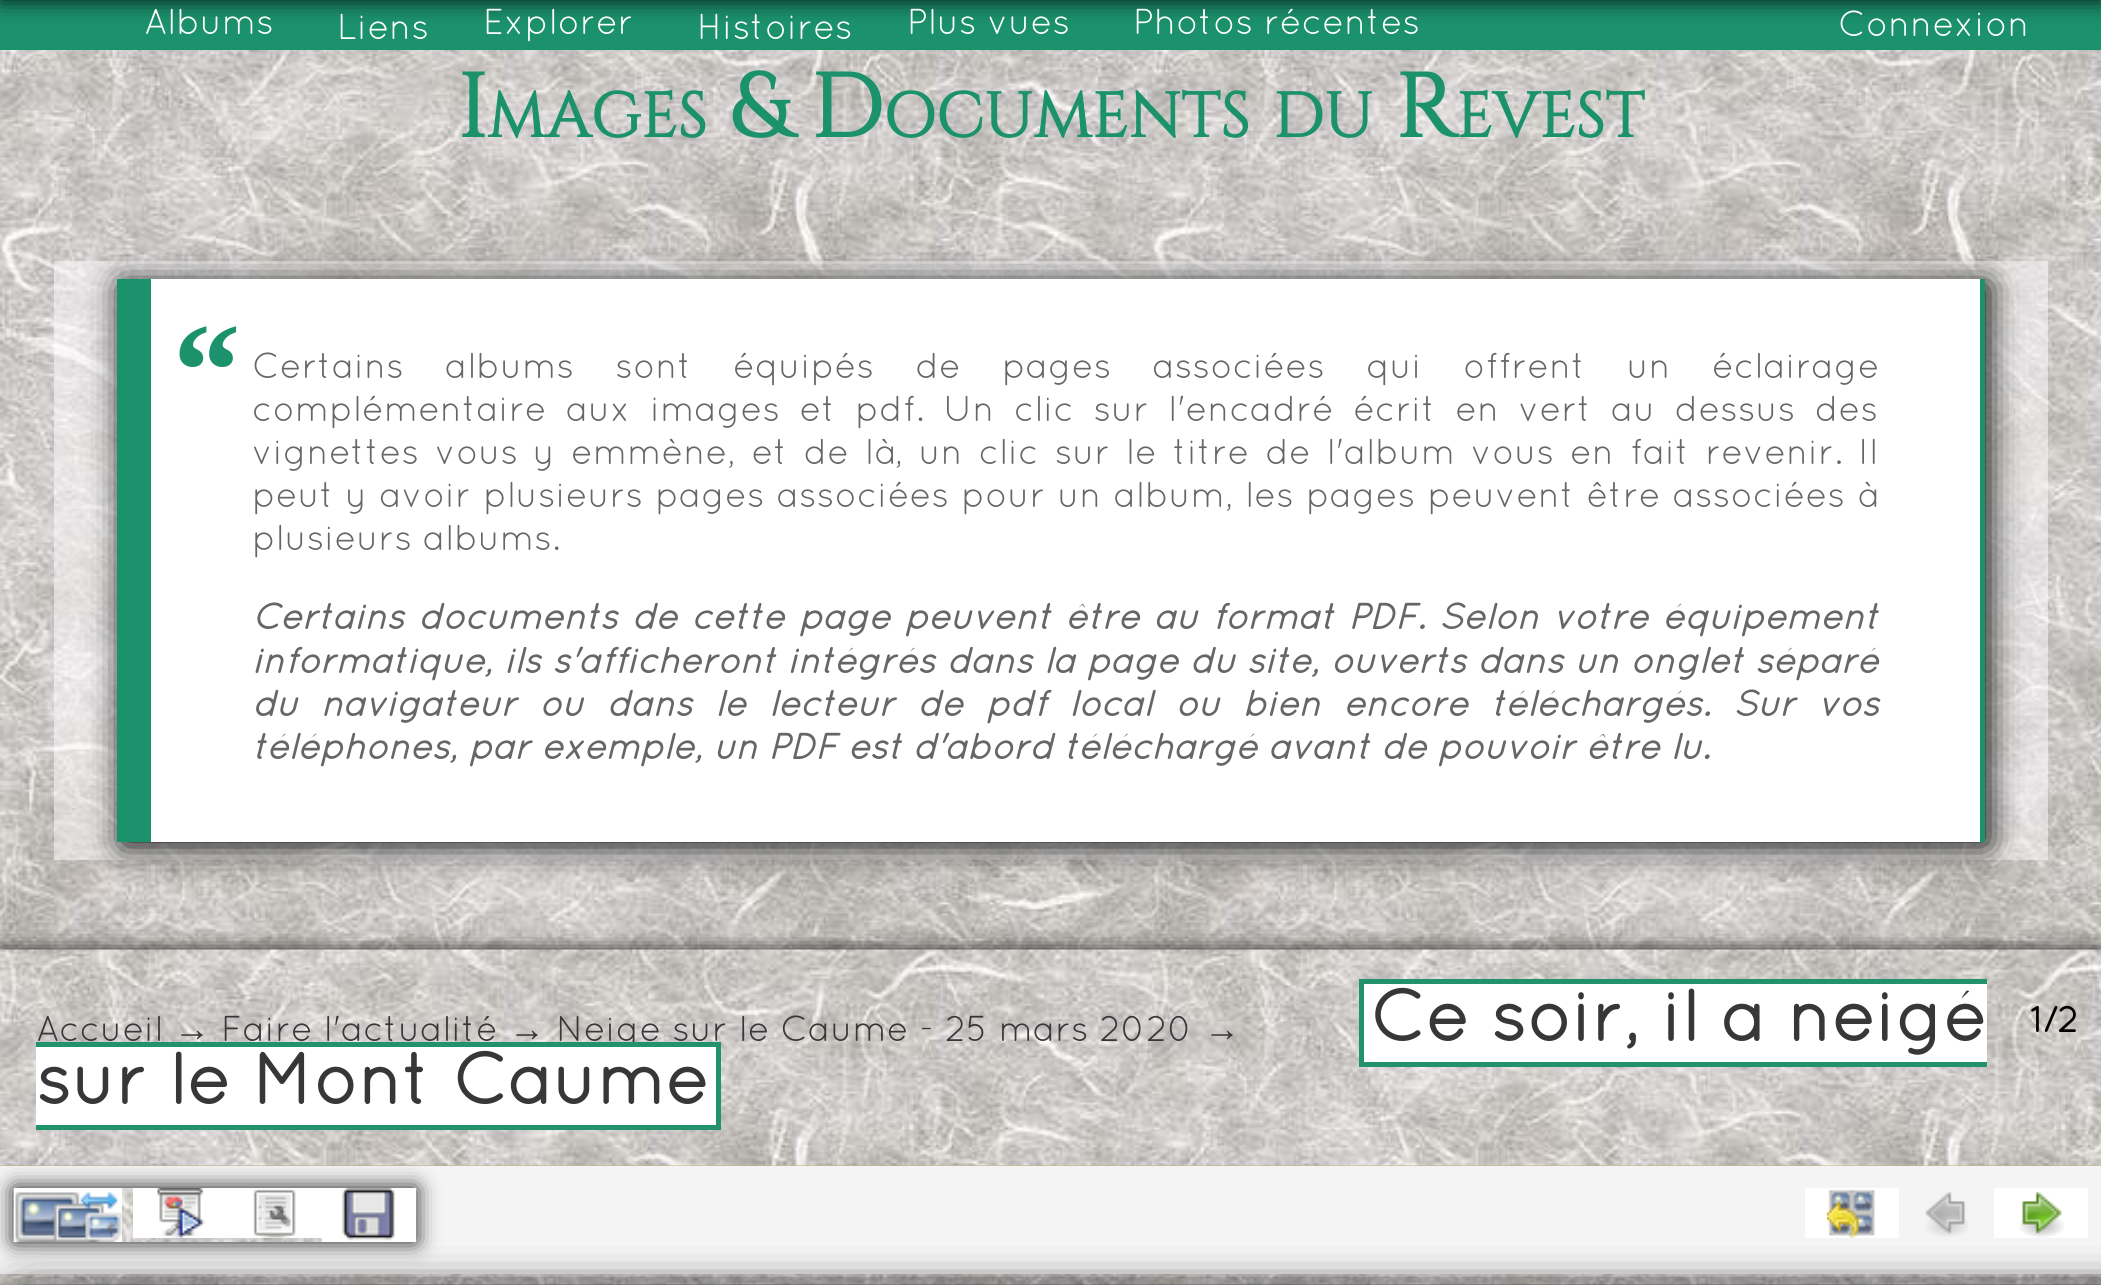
import math
import cairocffi as cairo

surface = cairo.ImageSurface(cairo.FORMAT_RGB24, 2101, 1285)
cr = cairo.Context(surface)
options = cairo.FontOptions()
options.set_hint_metrics(cairo.HINT_METRICS_OFF)
options.set_hint_style(cairo.HINT_STYLE_NONE)
cr.set_font_options(options)
cr.set_miter_limit(4)


def use_color(code):
    cr.set_source_rgb(*(v / 255 for v in bytes.fromhex(code[-6:])))


def spaced_text(x, y, s, letter, word):
    cr.move_to(x, y)
    for ch in s:
        cr.show_text(ch)
        cr.rel_move_to(letter + word * (ch == ' '), 0)


def round_rect(x, y, w, h, r):
    cr.new_sub_path()
    for i, (u, v) in enumerate([(x + w - r, y + h - r), (x + r, y + h - r), (x + r, y + r), (x + w - r, y + r)]):
        cr.arc(u, v, r, i * math.pi / 2, (i + 1) * math.pi / 2)
    cr.close_path()


def shadow(x, y, w, h, r, blur, alpha):
    cr.push_group_with_content(cairo.CONTENT_ALPHA)
    cr.set_operator(cairo.OPERATOR_SOURCE)
    for i in range(15, -16, -2):
        e = blur * i / 6
        if min(w, h) + 2 * e > 0:
            cr.set_source_rgba(0, 0, 0, alpha * math.erfc((i - 1) / 8.5) / 2)
            round_rect(x - e, y - e, w + 2 * e, h + 2 * e, max(0, min(r + e + blur * .6, min(w, h) / 2 + e)))
            cr.fill()
    cr.mask(cr.pop_group())


def picture(path, x, y, w, h):
    cr.save()
    cr.set_source_surface(cairo.ImageSurface.create_from_png(path), x, y)
    cr.rectangle(x, y, w, h)
    cr.fill()
    cr.restore()


use_color("#ffffff")
cr.paint()
picture("img1.png", 0, 50, 2101, 1235)
use_color("#1b926c")
cr.rectangle(0, 0, 2101, 50)
cr.fill()
use_color("#000000")
shadow(0, -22, 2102, 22, 0, 11, 0.9)
cr.select_font_face("Quicksand")
cr.set_font_size(36)
use_color("#ffffff")
cr.move_to(144, 34)
cr.show_text("Albums")
cr.move_to(337, 39)
cr.show_text("Liens")
cr.move_to(483, 34)
cr.show_text("Explorer")
cr.move_to(697, 39)
cr.show_text("Histoires")
cr.move_to(907, 34)
cr.show_text("Plus vues")
cr.move_to(1133, 34)
cr.show_text("Photos récentes")
cr.move_to(1838, 36)
cr.show_text("Connexion")
cr.select_font_face("Cinzel", cairo.FONT_SLANT_NORMAL, cairo.FONT_WEIGHT_BOLD)
cr.set_font_size(90)
use_color("#1b926c")
cr.move_to(457, 137)
cr.show_text("I")
cr.set_font_size(63)
cr.move_to(487, 137)
cr.show_text("MAGES")
cr.set_font_size(90)
cr.move_to(730, 137)
cr.show_text("& D")
cr.set_font_size(63)
cr.move_to(883, 137)
cr.show_text("OCUMENTS")
cr.move_to(1273, 137)
cr.show_text("DU")
cr.set_font_size(90)
cr.move_to(1395, 137)
cr.show_text("R")
cr.set_font_size(63)
cr.move_to(1456, 137)
cr.show_text("EVEST")
cr.set_source_rgba(1, 1, 1, 0.5)
cr.rectangle(72, 279, 1958, 563)
cr.fill()
cr.rectangle(63, 270, 1976, 581)
cr.set_line_width(18)
cr.stroke()
use_color("#000000")
shadow(122, 284, 1867, 562, 0, 17, 1)
use_color("#ffffff")
cr.rectangle(151, 279, 1829, 563)
cr.fill()
use_color("#1b926c")
cr.rectangle(1980, 279, 5, 563)
cr.fill()
cr.rectangle(117, 279, 34, 563)
cr.fill()
cr.select_font_face("Liberation Serif", cairo.FONT_SLANT_NORMAL, cairo.FONT_WEIGHT_BOLD)
cr.set_font_size(135)
cr.move_to(173, 416)
cr.show_text("“")
cr.select_font_face("Quicksand")
cr.set_font_size(36)
use_color("#666666")
spaced_text(252, 378, "Certains albums sont équipés de pages associées qui offrent un éclairage", 0, 30.25)
spaced_text(252, 421, "complémentaire aux images et pdf. Un clic sur l'encadré écrit en vert au dessus des", 0, 8.5)
spaced_text(252, 464, "vignettes vous y emmène, et de là, un clic sur le titre de l'album vous en fait revenir. Il", 0, 5)
spaced_text(252, 507, "peut y avoir plusieurs pages associées pour un album, les pages peuvent être associées à", 0, 1.25)
cr.move_to(252, 550)
cr.show_text("plusieurs albums.")
cr.select_font_face("Quicksand", cairo.FONT_SLANT_ITALIC, cairo.FONT_WEIGHT_BOLD)
spaced_text(252, 629, "Certains documents de cette page peuvent être au format PDF. Selon votre équipement", 0, 3.25)
spaced_text(252, 673, "informatique, ils s'afficheront intégrés dans la page du site, ouverts dans un onglet séparé", 0, 0.6)
spaced_text(252, 716, "du navigateur ou dans le lecteur de pdf local ou bien encore téléchargés. Sur vos", 0, 12)
cr.move_to(252, 759)
cr.show_text("téléphones, par exemple, un PDF est d'abord téléchargé avant de pouvoir être lu.")
use_color("#000000")
shadow(0, 950, 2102, 216, 0, 11, 0.9)
use_color("#c0b283")
cr.rectangle(0, 1165, 2101, 1)
cr.fill()
picture("img2.png", 0, 949, 2101, 217)
cr.select_font_face("Quicksand")
use_color("#373737")
cr.move_to(36, 1041)
cr.show_text("Accueil")
cr.select_font_face("Liberation Serif", cairo.FONT_SLANT_NORMAL, cairo.FONT_WEIGHT_BOLD)
cr.move_to(174, 1041)
cr.show_text("→")
cr.select_font_face("Quicksand")
cr.move_to(221, 1041)
cr.show_text("Faire l'actualité")
cr.select_font_face("Liberation Serif", cairo.FONT_SLANT_NORMAL, cairo.FONT_WEIGHT_BOLD)
cr.move_to(509, 1041)
cr.show_text("→")
cr.select_font_face("Quicksand")
cr.move_to(556, 1041)
cr.show_text("Neige sur le Caume - 25 mars 2020")
cr.select_font_face("Liberation Serif", cairo.FONT_SLANT_NORMAL, cairo.FONT_WEIGHT_BOLD)
cr.move_to(1204, 1041)
cr.show_text("→")
use_color("#ffffff")
cr.rectangle(1364, 984, 623, 78)
cr.fill()
cr.select_font_face("Quicksand", cairo.FONT_SLANT_NORMAL, cairo.FONT_WEIGHT_BOLD)
cr.set_font_size(72)
use_color("#373737")
cr.move_to(1370, 1041)
cr.show_text("Ce soir, il a neigé")
use_color("#21926c")
cr.rectangle(1359, 979, 628, 5)
cr.fill()
cr.rectangle(1359, 1062, 628, 5)
cr.fill()
cr.rectangle(1359, 979, 5, 88)
cr.fill()
use_color("#ffffff")
cr.rectangle(36, 1047, 680, 78)
cr.fill()
use_color("#373737")
cr.move_to(36, 1104)
cr.show_text("sur le Mont Caume")
use_color("#21926c")
cr.rectangle(36, 1042, 684, 5)
cr.fill()
cr.rectangle(716, 1042, 5, 88)
cr.fill()
cr.rectangle(36, 1125, 684, 5)
cr.fill()
cr.set_font_size(36)
use_color("#000000")
cr.move_to(2030, 1032)
cr.show_text("1/2")
use_color("#f4f4f4")
cr.rectangle(0, 1166, 2101, 108)
cr.fill()
use_color("#000000")
shadow(14, 1188, 402, 54, 0, 11, 0.9)
shadow(11, 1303, 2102, 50, 0, 22.5, 1)
shadow(32, 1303, 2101, 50, 0, 22.5, 1)
picture("img3.png", 13, 1188, 404, 54)
use_color("#ffffff")
cr.rectangle(14, 1188, 108, 54)
cr.fill()
picture("img4.png", 15, 1192, 107, 50)
cr.rectangle(133, 1188, 189, 50)
cr.fill()
picture("img5.png", 157, 1188, 48, 50)
cr.rectangle(322, 1188, 94, 54)
cr.fill()
picture("img6.png", 342, 1188, 53, 53)
picture("img7.png", 253, 1189, 43, 49)
cr.rectangle(1805, 1188, 94, 50)
cr.fill()
picture("img8.png", 1827, 1189, 48, 49)
picture("img9.png", 1925, 1192, 43, 45)
cr.rectangle(1994, 1188, 94, 50)
cr.fill()
picture("img10.png", 2019, 1192, 45, 46)
surface.write_to_png("result.png")
